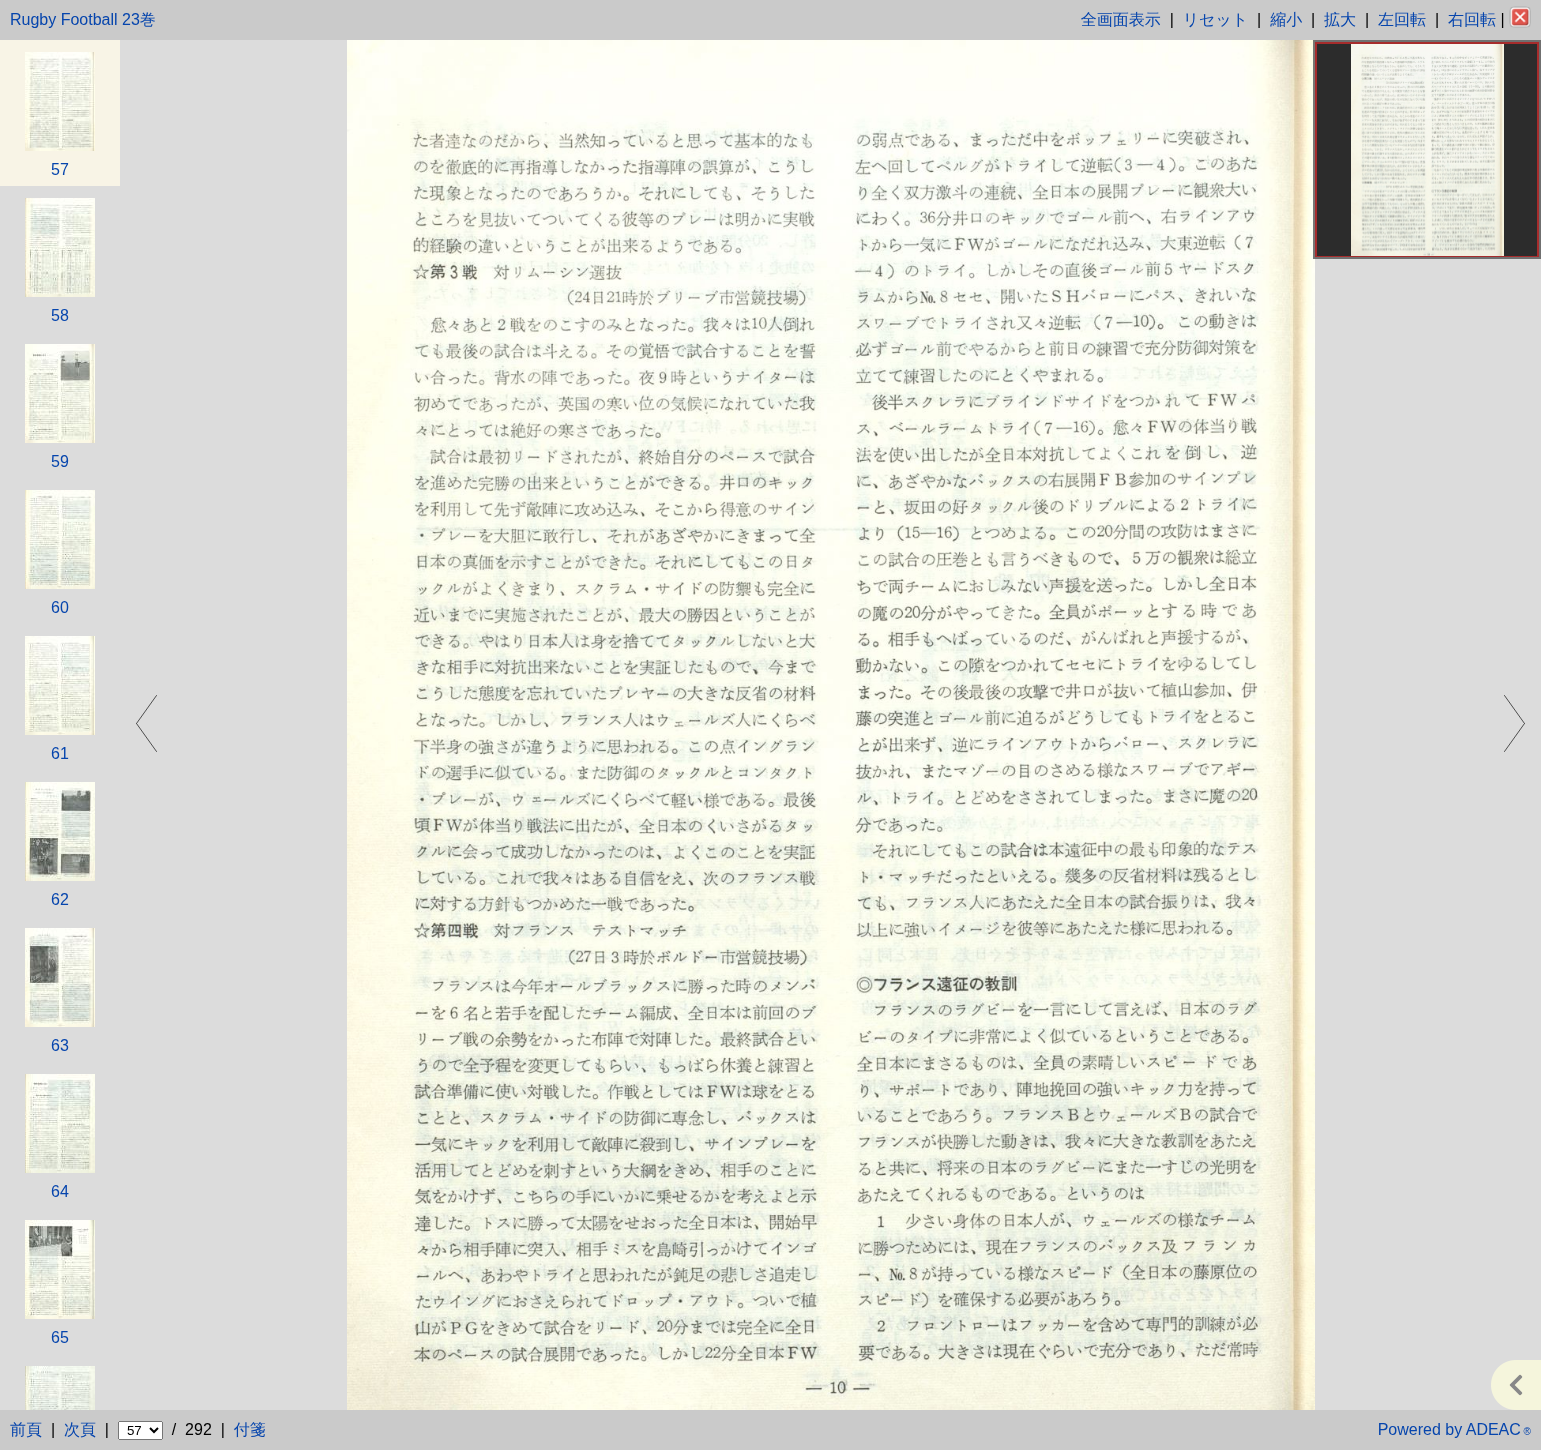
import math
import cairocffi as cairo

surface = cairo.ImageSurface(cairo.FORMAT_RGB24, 1541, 1450)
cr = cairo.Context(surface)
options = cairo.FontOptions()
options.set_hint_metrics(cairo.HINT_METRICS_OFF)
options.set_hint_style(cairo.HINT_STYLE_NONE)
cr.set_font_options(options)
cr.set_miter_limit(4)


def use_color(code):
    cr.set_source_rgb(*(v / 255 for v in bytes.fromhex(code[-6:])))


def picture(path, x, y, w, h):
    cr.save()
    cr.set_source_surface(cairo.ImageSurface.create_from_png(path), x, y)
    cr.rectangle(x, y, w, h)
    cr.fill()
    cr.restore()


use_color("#ffffff")
cr.paint()
picture("img1.png", 0, 0, 1541, 1450)
use_color("#f5f5dc")
cr.new_path()
cr.move_to(1516, 1360)
cr.line_to(1541, 1360)
cr.line_to(1541, 1410)
cr.line_to(1516, 1410)
cr.curve_to(1502, 1410, 1491, 1399, 1491, 1385)
cr.curve_to(1491, 1371, 1502, 1360, 1516, 1360)
cr.close_path()
cr.fill()
picture("img2.png", 1509, 1374, 14, 22)
surface.write_to_png("result.png")
